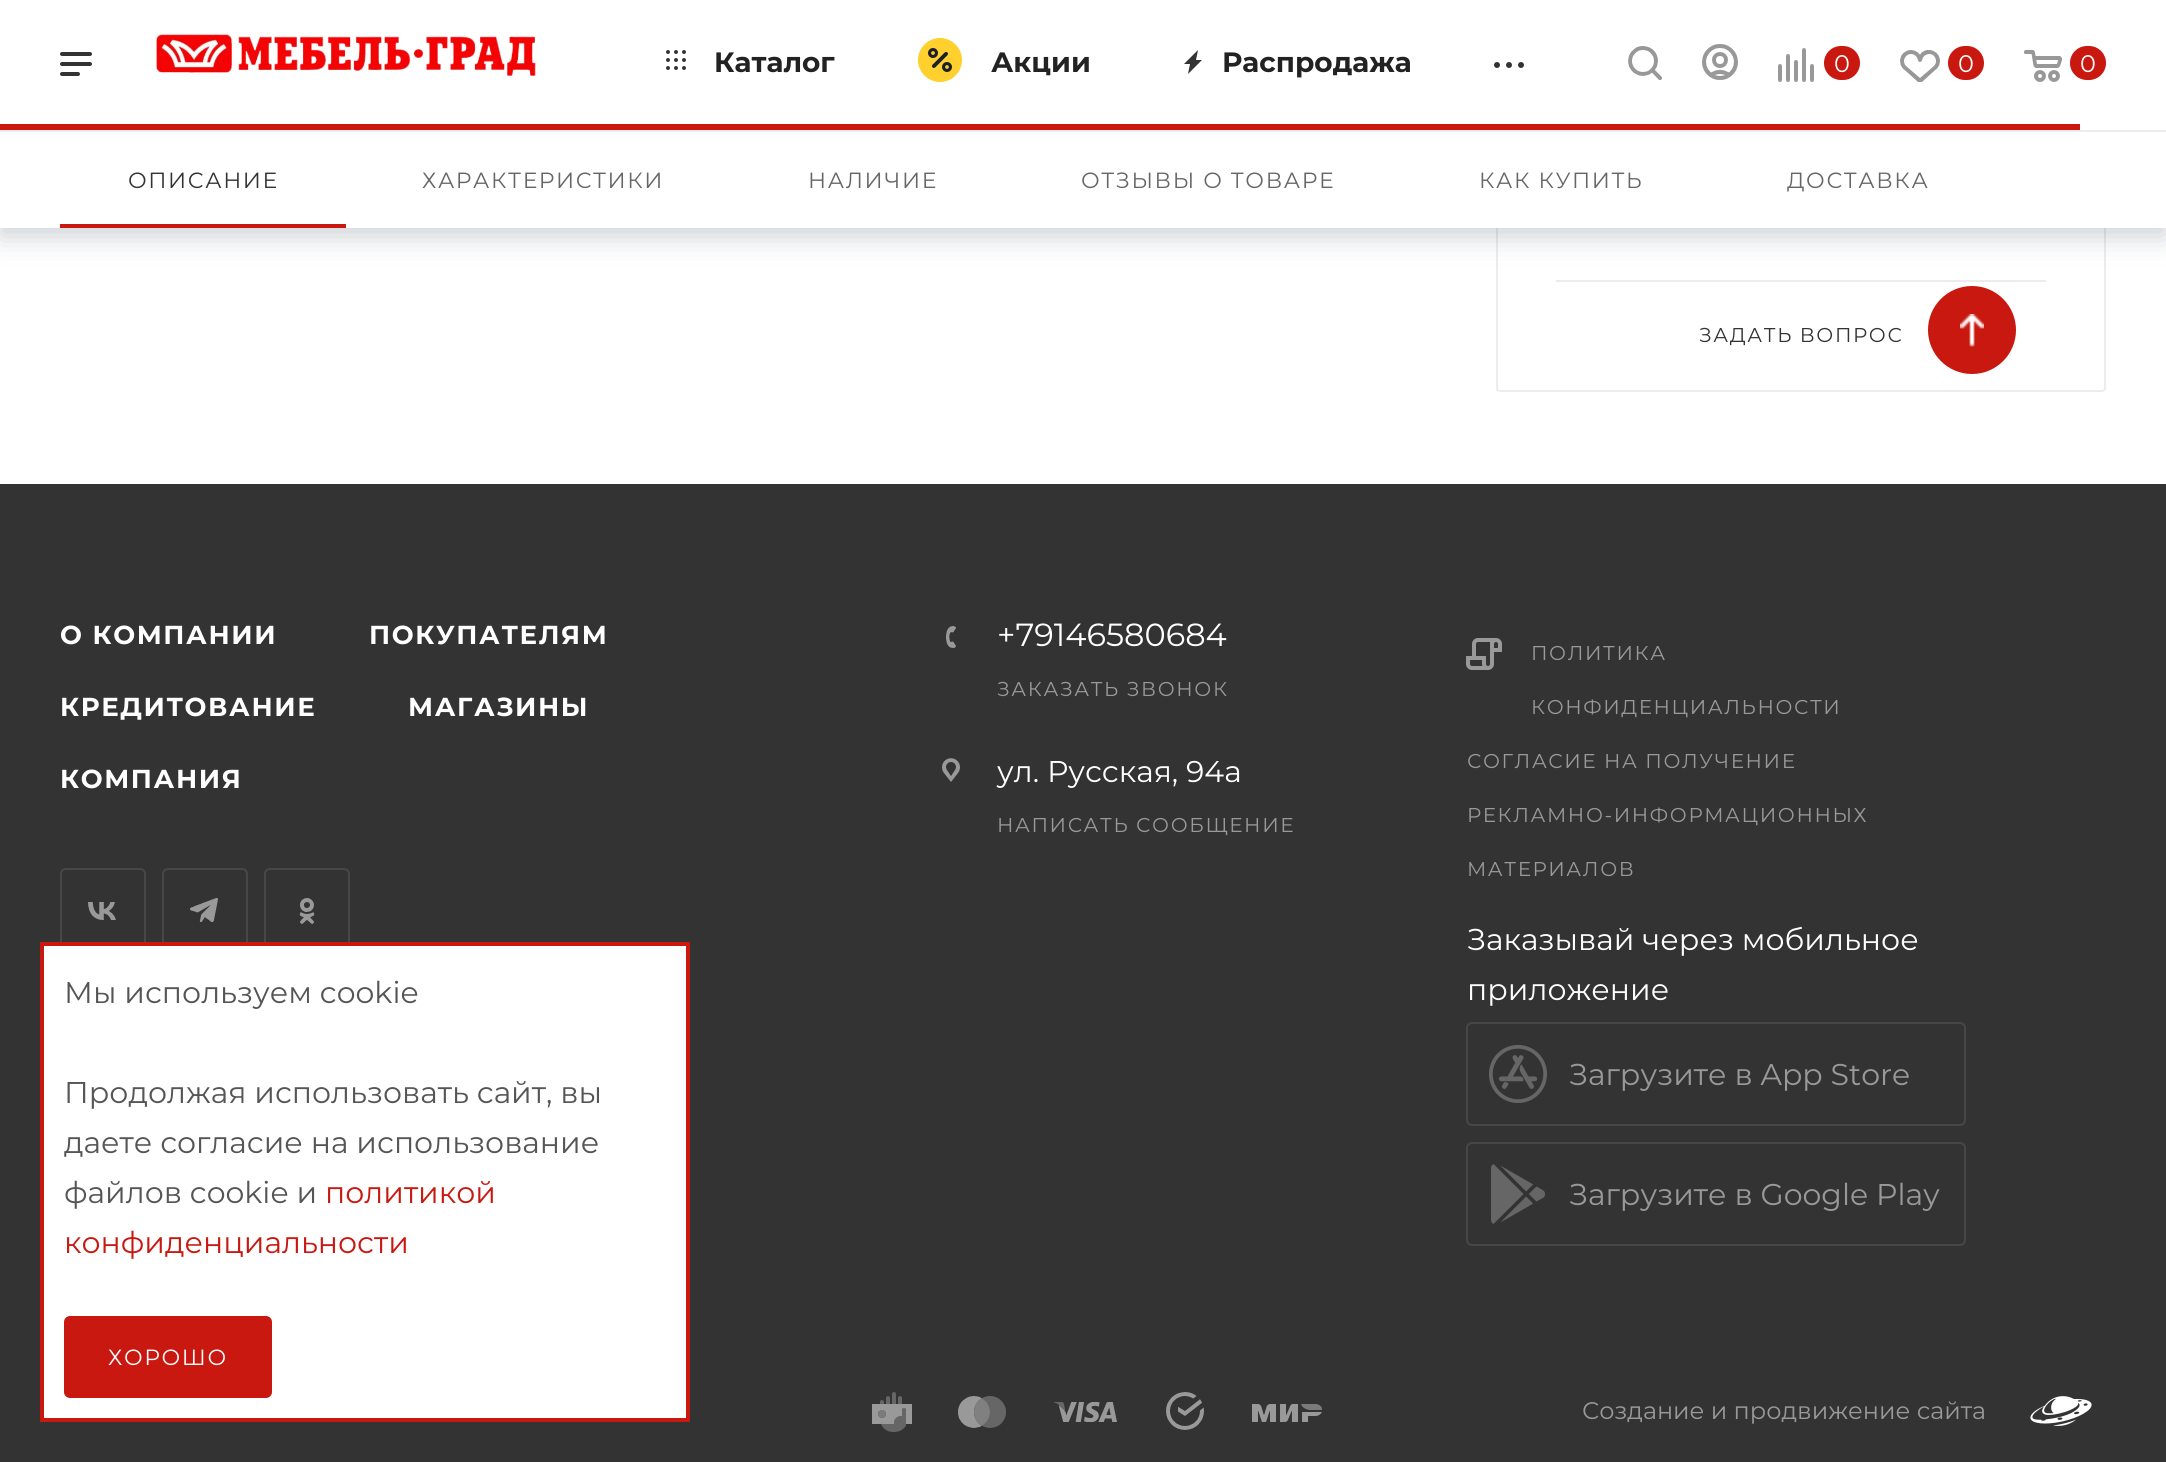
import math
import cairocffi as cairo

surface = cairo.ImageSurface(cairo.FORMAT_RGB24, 2166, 1462)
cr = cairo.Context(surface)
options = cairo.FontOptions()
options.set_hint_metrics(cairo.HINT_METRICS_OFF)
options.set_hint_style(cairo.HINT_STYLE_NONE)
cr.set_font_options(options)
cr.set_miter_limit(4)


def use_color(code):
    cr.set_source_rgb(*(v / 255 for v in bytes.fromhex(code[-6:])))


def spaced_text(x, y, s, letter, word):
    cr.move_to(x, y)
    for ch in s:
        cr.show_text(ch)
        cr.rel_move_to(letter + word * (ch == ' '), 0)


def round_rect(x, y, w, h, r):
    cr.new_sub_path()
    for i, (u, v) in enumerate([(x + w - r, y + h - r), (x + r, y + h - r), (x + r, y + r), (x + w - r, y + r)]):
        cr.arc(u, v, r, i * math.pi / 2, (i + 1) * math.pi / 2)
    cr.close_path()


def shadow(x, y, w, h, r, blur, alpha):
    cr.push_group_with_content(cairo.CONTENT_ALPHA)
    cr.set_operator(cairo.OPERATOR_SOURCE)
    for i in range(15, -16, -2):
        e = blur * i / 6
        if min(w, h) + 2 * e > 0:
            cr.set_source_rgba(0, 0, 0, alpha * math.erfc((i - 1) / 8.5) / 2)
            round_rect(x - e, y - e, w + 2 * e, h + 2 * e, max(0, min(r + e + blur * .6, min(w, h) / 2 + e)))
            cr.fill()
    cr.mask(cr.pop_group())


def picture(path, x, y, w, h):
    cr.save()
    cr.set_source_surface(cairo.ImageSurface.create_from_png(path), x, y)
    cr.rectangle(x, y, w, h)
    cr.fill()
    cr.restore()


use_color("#ffffff")
cr.paint()
round_rect(1497, -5, 608, 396, 3)
use_color("#ececec")
cr.stroke()
use_color("#20364a")
shadow(0, 138, 2166, 98, 0, 14, 0.23)
use_color("#ffffff")
cr.rectangle(0, 0, 2166, 130)
cr.fill()
picture("img1.png", 60, 52, 32, 24)
picture("img2.png", 156, 34, 380, 42)
picture("img3.png", 666, 50, 20, 20)
cr.select_font_face("Montserrat", cairo.FONT_SLANT_NORMAL, cairo.FONT_WEIGHT_BOLD)
cr.set_font_size(28)
use_color("#222222")
cr.move_to(714, 72)
cr.show_text("Каталог")
picture("img4.png", 918, 38, 44, 44)
cr.move_to(991, 72)
cr.show_text("Акции")
use_color("#333333")
cr.set_fill_rule(cairo.FILL_RULE_EVEN_ODD)
cr.new_path()
cr.move_to(1198, 50)
cr.line_to(1184, 64)
cr.line_to(1190, 64)
cr.line_to(1188, 74)
cr.line_to(1202, 60)
cr.line_to(1196, 60)
cr.close_path()
cr.fill()
use_color("#222222")
cr.move_to(1222, 72)
cr.show_text("Распродажа")
picture("img5.png", 1494, 62, 30, 6)
picture("img6.png", 1628, 46, 34, 34)
picture("img7.png", 1702, 44, 36, 36)
picture("img8.png", 1778, 48, 36, 34)
use_color("#c8180f")
round_rect(1824, 46, 36, 34, 17)
cr.fill()
cr.select_font_face("Montserrat")
cr.set_font_size(24)
use_color("#ffffff")
cr.move_to(1834, 72)
cr.show_text("0")
picture("img9.png", 1900, 50, 40, 32)
use_color("#c8180f")
round_rect(1948, 46, 36, 34, 17)
cr.fill()
use_color("#ffffff")
cr.move_to(1958, 72)
cr.show_text("0")
picture("img10.png", 2024, 50, 38, 32)
use_color("#c8180f")
round_rect(2070, 46, 36, 34, 17)
cr.fill()
use_color("#ffffff")
cr.move_to(2080, 72)
cr.show_text("0")
use_color("#c8180f")
cr.rectangle(0, 124, 2080, 6)
cr.fill()
use_color("#ffffff")
cr.rectangle(0, 132, 2166, 96)
cr.fill()
use_color("#ececec")
cr.rectangle(0, 130, 2166, 2)
cr.fill()
cr.set_font_size(22)
use_color("#333333")
spaced_text(128, 188, "ОПИСАНИЕ", 1.6, 0)
use_color("#c8180f")
cr.rectangle(60, 224, 286, 4)
cr.fill()
use_color("#666666")
spaced_text(422, 188, "ХАРАКТЕРИСТИКИ", 1.6, 0)
spaced_text(808, 188, "НАЛИЧИЕ", 1.6, 0)
spaced_text(1081, 188, "ОТЗЫВЫ О ТОВАРЕ", 1.6, 0)
spaced_text(1479, 188, "КАК КУПИТЬ", 1.6, 0)
spaced_text(1787, 188, "ДОСТАВКА", 1.6, 0)
use_color("#ececec")
cr.rectangle(1556, 280, 490, 2)
cr.fill()
cr.set_font_size(20)
use_color("#333333")
spaced_text(1699, 342, "ЗАДАТЬ ВОПРОС", 1.6, 0)
use_color("#c8180f")
cr.new_path()
cr.arc(1972, 330, 44, 0, 2 * math.pi)
cr.fill()
picture("img11.png", 1960, 314, 24, 33)
use_color("#333333")
cr.rectangle(0, 484, 2166, 978)
cr.fill()
cr.select_font_face("Montserrat", cairo.FONT_SLANT_NORMAL, cairo.FONT_WEIGHT_BOLD)
cr.set_font_size(26)
use_color("#ffffff")
spaced_text(60, 644, "О КОМПАНИИ", 1.6, 0)
spaced_text(369, 644, "ПОКУПАТЕЛЯМ", 1.6, 0)
spaced_text(60, 716, "КРЕДИТОВАНИЕ", 1.6, 0)
spaced_text(408, 716, "МАГАЗИНЫ", 1.6, 0)
spaced_text(60, 788, "КОМПАНИЯ", 1.6, 0)
picture("img12.png", 88, 902, 28, 18)
round_rect(61, 869, 84, 84, 5)
use_color("#474747")
cr.stroke()
picture("img13.png", 190, 898, 28, 24)
round_rect(163, 869, 84, 84, 5)
cr.stroke()
picture("img14.png", 299, 898, 16, 26)
round_rect(265, 869, 84, 84, 5)
cr.stroke()
picture("img15.png", 946, 626, 10, 22)
cr.select_font_face("Montserrat")
cr.set_font_size(32)
use_color("#ffffff")
cr.move_to(997, 646)
cr.show_text("+79146580684")
cr.set_font_size(20)
use_color("#999999")
spaced_text(997, 696, "ЗАКАЗАТЬ ЗВОНОК", 1.6, 0)
picture("img16.png", 942, 758, 18, 24)
cr.set_font_size(30)
use_color("#ffffff")
cr.move_to(997, 782)
cr.show_text("ул. Русская, 94а")
cr.set_font_size(20)
use_color("#999999")
spaced_text(997, 832, "НАПИСАТЬ СООБЩЕНИЕ", 1.6, 0)
picture("img17.png", 1466, 638, 36, 32)
spaced_text(1531, 660, "ПОЛИТИКА", 1.6, 0)
spaced_text(1531, 714, "КОНФИДЕНЦИАЛЬНОСТИ", 1.6, 0)
spaced_text(1467, 768, "СОГЛАСИЕ НА ПОЛУЧЕНИЕ", 1.6, 0)
spaced_text(1467, 822, "РЕКЛАМНО-ИНФОРМАЦИОННЫХ", 1.6, 0)
spaced_text(1467, 876, "МАТЕРИАЛОВ", 1.6, 0)
cr.set_font_size(30)
use_color("#ffffff")
cr.move_to(1467, 950)
cr.show_text("Заказывай через мобильное")
cr.move_to(1467, 1000)
cr.show_text("приложение")
round_rect(1467, 1023, 498, 102, 5)
use_color("#474747")
cr.stroke()
picture("img18.png", 1489, 1045, 58, 58)
use_color("#999999")
cr.move_to(1569, 1085)
cr.show_text("Загрузите в App Store")
round_rect(1467, 1143, 498, 102, 5)
use_color("#474747")
cr.stroke()
picture("img19.png", 1491, 1164, 54, 60)
use_color("#999999")
cr.move_to(1569, 1205)
cr.show_text("Загрузите в Google Play")
picture("img20.png", 872, 1392, 40, 40)
picture("img21.png", 958, 1396, 48, 32)
picture("img22.png", 1054, 1402, 63, 20)
picture("img23.png", 1166, 1392, 38, 38)
picture("img24.png", 1252, 1404, 70, 18)
cr.set_font_size(24)
cr.move_to(1582, 1419)
cr.show_text("Создание и продвижение сайта")
picture("img25.png", 2030, 1396, 62, 30)
use_color("#ffffff")
cr.rectangle(42, 944, 646, 476)
cr.fill_preserve()
use_color("#c8180f")
cr.set_line_width(4)
cr.stroke()
cr.set_font_size(30)
use_color("#555555")
cr.move_to(64, 1003)
cr.show_text("Мы используем cookie")
cr.move_to(64, 1103)
cr.show_text("Продолжая использовать сайт, вы")
cr.move_to(64, 1153)
cr.show_text("даете согласие на использование")
cr.move_to(64, 1203)
cr.show_text("файлов cookie и")
use_color("#c8180f")
cr.move_to(325, 1203)
cr.show_text("политикой")
cr.move_to(64, 1253)
cr.show_text("конфиденциальности")
round_rect(65, 1317, 206, 80, 5)
cr.fill_preserve()
cr.set_line_width(2)
cr.stroke()
cr.set_font_size(22)
use_color("#ffffff")
spaced_text(108, 1365, "ХОРОШО", 1.6, 0)
surface.write_to_png("result.png")
